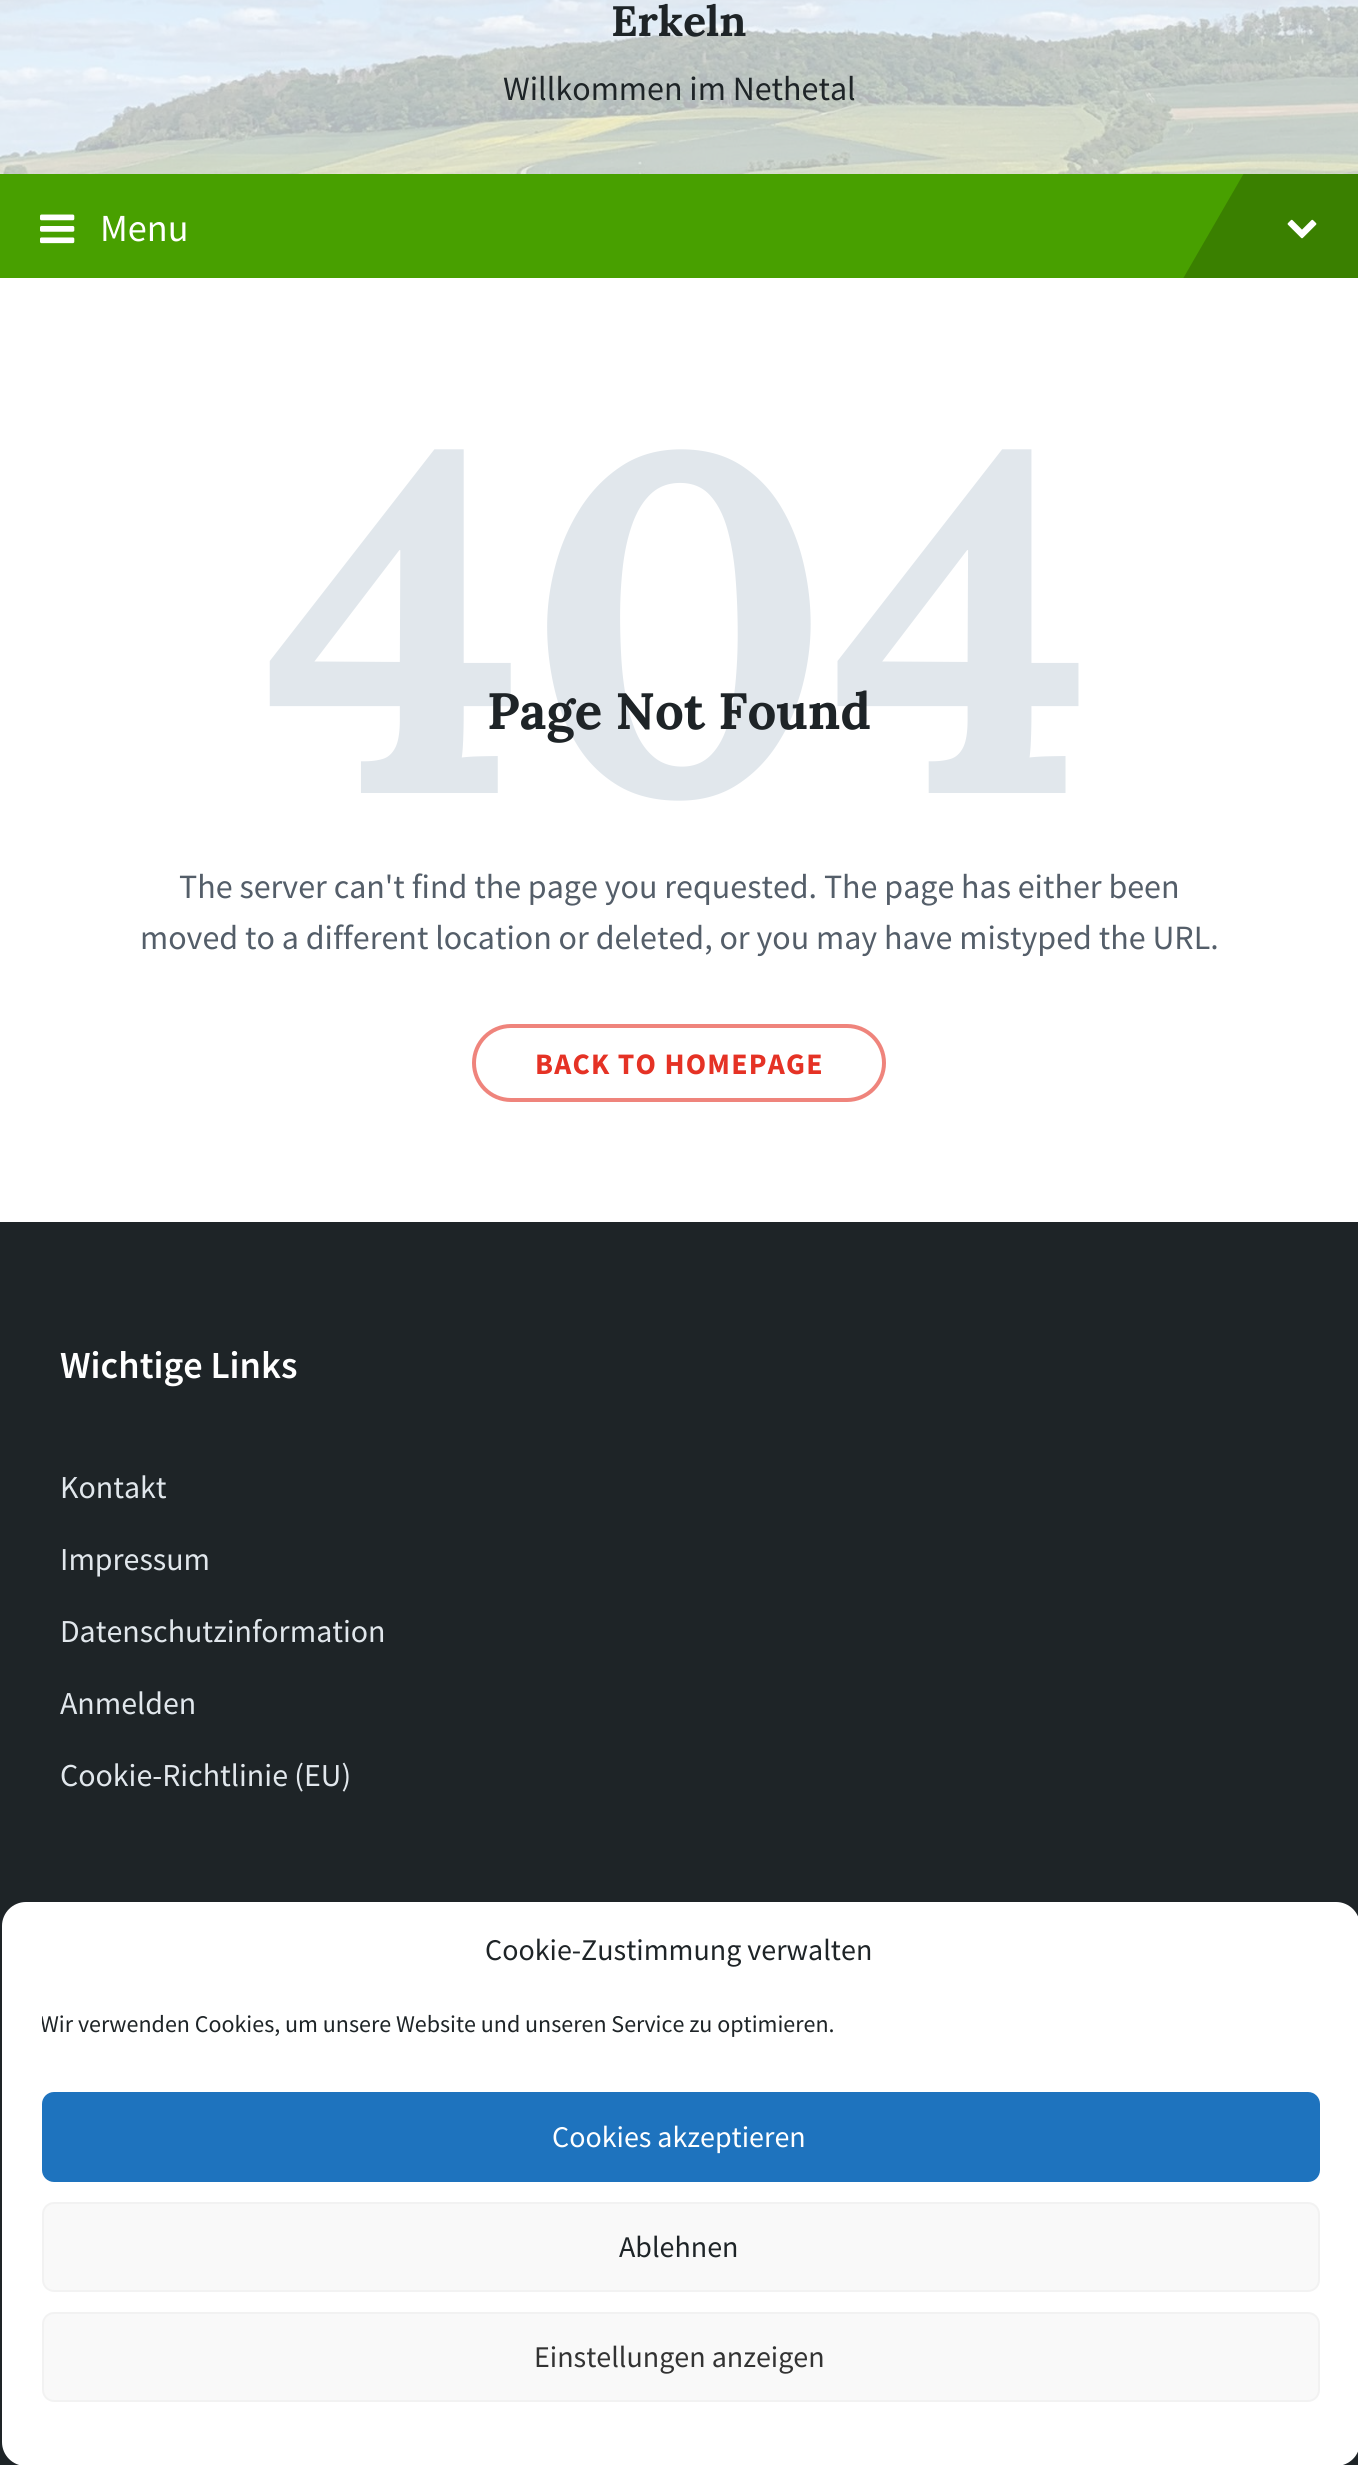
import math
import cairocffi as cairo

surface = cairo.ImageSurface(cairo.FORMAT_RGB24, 1358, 2465)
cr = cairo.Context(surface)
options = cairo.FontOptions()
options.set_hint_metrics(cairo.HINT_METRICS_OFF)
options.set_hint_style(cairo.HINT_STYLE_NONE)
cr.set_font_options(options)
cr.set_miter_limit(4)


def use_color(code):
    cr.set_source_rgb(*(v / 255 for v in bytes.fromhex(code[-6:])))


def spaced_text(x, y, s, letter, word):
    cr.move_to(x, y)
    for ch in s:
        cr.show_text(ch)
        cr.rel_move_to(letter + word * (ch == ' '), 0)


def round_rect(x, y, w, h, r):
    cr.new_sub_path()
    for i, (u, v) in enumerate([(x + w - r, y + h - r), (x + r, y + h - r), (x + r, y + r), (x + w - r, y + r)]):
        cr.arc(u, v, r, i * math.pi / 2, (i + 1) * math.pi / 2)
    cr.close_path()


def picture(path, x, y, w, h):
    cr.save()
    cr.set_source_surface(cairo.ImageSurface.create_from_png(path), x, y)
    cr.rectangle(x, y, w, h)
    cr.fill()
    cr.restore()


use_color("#ffffff")
cr.paint()
picture("img1.png", 0, 0, 1358, 174)
cr.select_font_face("Lora", cairo.FONT_SLANT_NORMAL, cairo.FONT_WEIGHT_BOLD)
cr.set_font_size(42.5)
use_color("#1e2427")
cr.move_to(611, 36)
cr.show_text("Erkeln")
cr.select_font_face("Source Sans Pro")
cr.set_font_size(34)
cr.move_to(503, 100)
cr.show_text("Willkommen im Nethetal")
use_color("#48a000")
cr.rectangle(0, 174, 1244, 104)
cr.fill()
picture("img2.png", 40, 214, 35, 30)
cr.set_font_size(38.25)
use_color("#ffffff")
cr.move_to(100, 241)
cr.show_text("Menu")
cr.save()
cr.rectangle(0, 174, 1358, 104)
cr.clip()
use_color("#3a8000")
cr.new_path()
cr.move_to(1281, 109)
cr.line_to(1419, 189)
cr.line_to(1315, 369)
cr.line_to(1177, 289)
cr.close_path()
cr.fill()
cr.restore()
picture("img3.png", 1287, 219, 30, 20)
cr.select_font_face("Lora", cairo.FONT_SLANT_NORMAL, cairo.FONT_WEIGHT_BOLD)
cr.set_font_size(480)
use_color("#e1e7ec")
cr.move_to(264, 793)
cr.show_text("404")
cr.set_font_size(51)
use_color("#1e2427")
cr.move_to(487, 729)
cr.show_text("Page Not Found")
cr.select_font_face("Source Sans Pro")
cr.set_font_size(34)
use_color("#545e69")
cr.move_to(179, 898)
cr.show_text("The server can't find the page you requested. The page has either been")
cr.move_to(140, 949)
cr.show_text("moved to a different location or deleted, or you may have mistyped the URL.")
round_rect(474, 1026, 410, 74, 37)
use_color("#ef847c")
cr.set_line_width(4)
cr.stroke()
cr.select_font_face("Source Sans Pro", cairo.FONT_SLANT_NORMAL, cairo.FONT_WEIGHT_BOLD)
cr.set_font_size(29.75)
use_color("#e53225")
spaced_text(535, 1074, "BACK TO HOMEPAGE", 1.25, 0)
use_color("#1e2427")
cr.rectangle(0, 1222, 1358, 1243)
cr.fill()
cr.select_font_face("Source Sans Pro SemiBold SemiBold")
cr.set_font_size(38.25)
use_color("#ffffff")
cr.move_to(60, 1378)
cr.show_text("Wichtige Links")
cr.select_font_face("Source Sans Pro")
cr.set_font_size(31.9)
use_color("#e1e7ec")
cr.move_to(60, 1498)
cr.show_text("Kontakt")
cr.move_to(60, 1570)
cr.show_text("Impressum")
cr.move_to(60, 1642)
cr.show_text("Datenschutzinformation")
cr.move_to(60, 1714)
cr.show_text("Anmelden")
cr.move_to(60, 1786)
cr.show_text("Cookie-Richtlinie (EU)")
use_color("#ffffff")
round_rect(2, 1902, 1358, 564, 24)
cr.fill()
cr.set_font_size(30)
use_color("#1e2427")
cr.move_to(485, 1960)
cr.show_text("Cookie-Zustimmung verwalten")
cr.save()
cr.rectangle(42, 2006, 1278, 46)
cr.clip()
cr.set_font_size(24)
cr.move_to(40, 2032)
cr.show_text("Wir verwenden Cookies, um unsere Website und unseren Service zu optimieren.")
cr.restore()
use_color("#1e73be")
round_rect(43, 2093, 1276, 88, 11)
cr.fill_preserve()
cr.set_line_width(2)
cr.stroke()
use_color("#ffffff")
cr.move_to(552, 2147)
cr.show_text("Cookies akzeptieren")
use_color("#f9f9f9")
round_rect(43, 2203, 1276, 88, 11)
cr.fill_preserve()
use_color("#f2f2f2")
cr.stroke()
use_color("#1e2427")
cr.move_to(619, 2257)
cr.show_text("Ablehnen")
use_color("#f9f9f9")
round_rect(43, 2313, 1276, 88, 11)
cr.fill_preserve()
use_color("#f2f2f2")
cr.stroke()
use_color("#333333")
cr.move_to(534, 2367)
cr.show_text("Einstellungen anzeigen")
surface.write_to_png("result.png")
